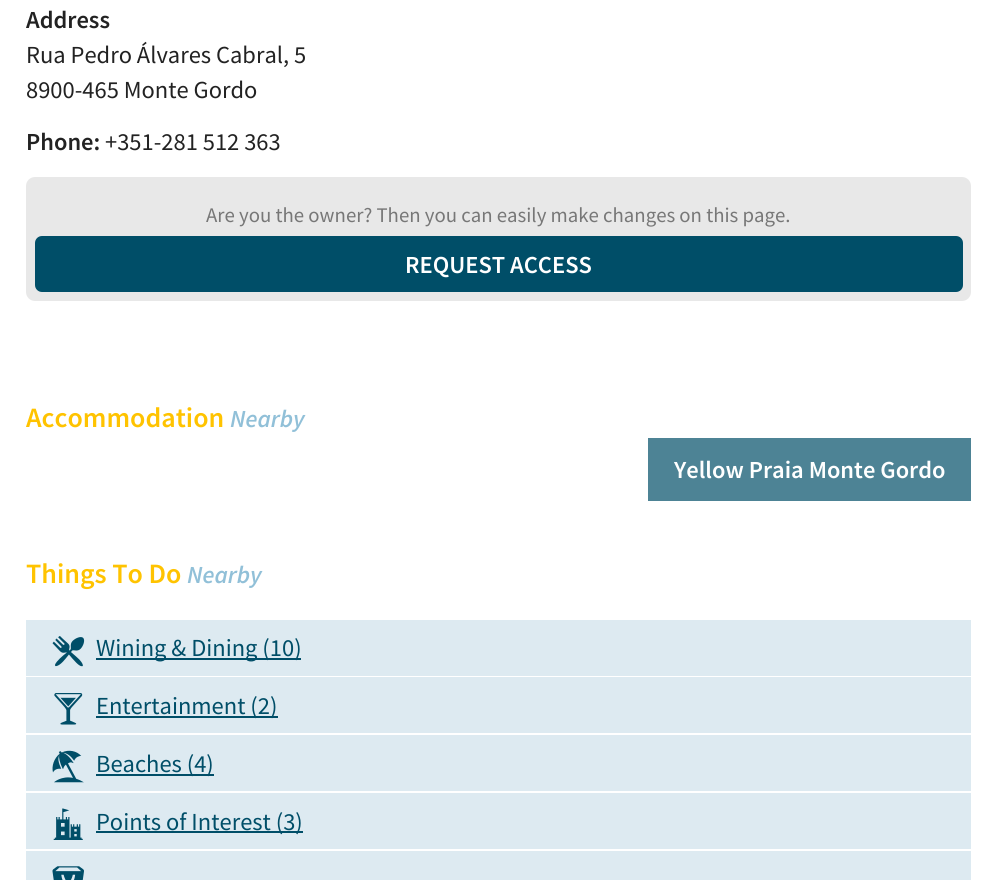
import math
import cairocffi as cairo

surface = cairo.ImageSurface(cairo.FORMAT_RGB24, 997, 880)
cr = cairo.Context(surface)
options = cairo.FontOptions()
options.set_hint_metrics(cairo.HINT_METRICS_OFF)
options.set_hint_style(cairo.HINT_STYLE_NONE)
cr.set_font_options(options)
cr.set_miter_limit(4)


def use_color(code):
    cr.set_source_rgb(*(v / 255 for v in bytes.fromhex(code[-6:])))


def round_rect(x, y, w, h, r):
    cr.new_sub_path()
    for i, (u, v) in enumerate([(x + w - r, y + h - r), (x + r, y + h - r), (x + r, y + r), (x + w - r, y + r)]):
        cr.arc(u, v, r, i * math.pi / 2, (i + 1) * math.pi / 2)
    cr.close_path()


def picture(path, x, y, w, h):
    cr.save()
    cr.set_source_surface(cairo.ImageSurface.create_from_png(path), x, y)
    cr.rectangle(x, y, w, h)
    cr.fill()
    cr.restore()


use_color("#ffffff")
cr.paint()
cr.select_font_face("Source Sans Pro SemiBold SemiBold")
cr.set_font_size(24.5)
use_color("#222222")
cr.move_to(26, 28)
cr.show_text("Address")
cr.select_font_face("Source Sans Pro")
cr.move_to(26, 63)
cr.show_text("Rua Pedro Álvares Cabral, 5")
cr.move_to(26, 98)
cr.show_text("8900-465 Monte Gordo")
cr.select_font_face("Source Sans Pro SemiBold SemiBold")
cr.move_to(26, 150)
cr.show_text("Phone:")
cr.select_font_face("Source Sans Pro")
cr.move_to(105, 150)
cr.show_text("+351-281 512 363")
use_color("#e8e8e8")
round_rect(26, 177, 945, 124, 9)
cr.fill()
cr.set_font_size(20.8)
use_color("#777777")
cr.move_to(206, 222)
cr.show_text("Are you the owner? Then you can easily make changes on this page.")
use_color("#004e68")
round_rect(35, 236, 928, 56, 7)
cr.fill()
cr.select_font_face("Source Sans Pro SemiBold SemiBold")
cr.set_font_size(24.5)
use_color("#ffffff")
cr.move_to(405, 273)
cr.show_text("REQUEST ACCESS")
cr.set_font_size(28)
use_color("#ffc300")
cr.move_to(26, 427)
cr.show_text("Accommodation")
cr.select_font_face("Source Sans Pro SemiBold SemiBold", cairo.FONT_SLANT_ITALIC)
cr.set_font_size(24.5)
use_color("#91c0d8")
cr.move_to(230, 427)
cr.show_text("Nearby")
use_color("#4d8395")
cr.rectangle(648, 438, 323, 63)
cr.fill()
cr.select_font_face("Source Sans Pro SemiBold SemiBold")
use_color("#ffffff")
cr.move_to(674, 478)
cr.show_text("Yellow Praia Monte Gordo")
cr.set_font_size(28)
use_color("#ffc300")
cr.move_to(26, 583)
cr.show_text("Things To Do")
cr.select_font_face("Source Sans Pro SemiBold SemiBold", cairo.FONT_SLANT_ITALIC)
cr.set_font_size(24.5)
use_color("#91c0d8")
cr.move_to(187, 583)
cr.show_text("Nearby")
use_color("#ddeaf1")
cr.rectangle(26, 620, 945, 56)
cr.fill()
picture("img1.png", 52, 636, 33, 31)
use_color("#004e68")
cr.rectangle(96, 658, 205, 2)
cr.fill()
cr.select_font_face("Source Sans Pro")
cr.move_to(96, 656)
cr.show_text("Wining & Dining (10)")
use_color("#ddeaf1")
cr.rectangle(26, 677, 945, 56)
cr.fill()
picture("img2.png", 54, 693, 29, 32)
use_color("#004e68")
cr.rectangle(96, 716, 182, 2)
cr.fill()
cr.move_to(96, 714)
cr.show_text("Entertainment (2)")
use_color("#ddeaf1")
cr.rectangle(26, 735, 945, 56)
cr.fill()
picture("img3.png", 52, 750, 32, 33)
use_color("#004e68")
cr.rectangle(96, 774, 118, 2)
cr.fill()
cr.move_to(96, 772)
cr.show_text("Beaches (4)")
use_color("#ddeaf1")
cr.rectangle(26, 793, 945, 56)
cr.fill()
picture("img4.png", 53, 808, 30, 32)
use_color("#004e68")
cr.rectangle(96, 831, 207, 2)
cr.fill()
cr.move_to(96, 830)
cr.show_text("Points of Interest (3)")
use_color("#ddeaf1")
cr.rectangle(26, 851, 945, 29)
cr.fill()
picture("img5.png", 52, 866, 32, 14)
surface.write_to_png("result.png")
